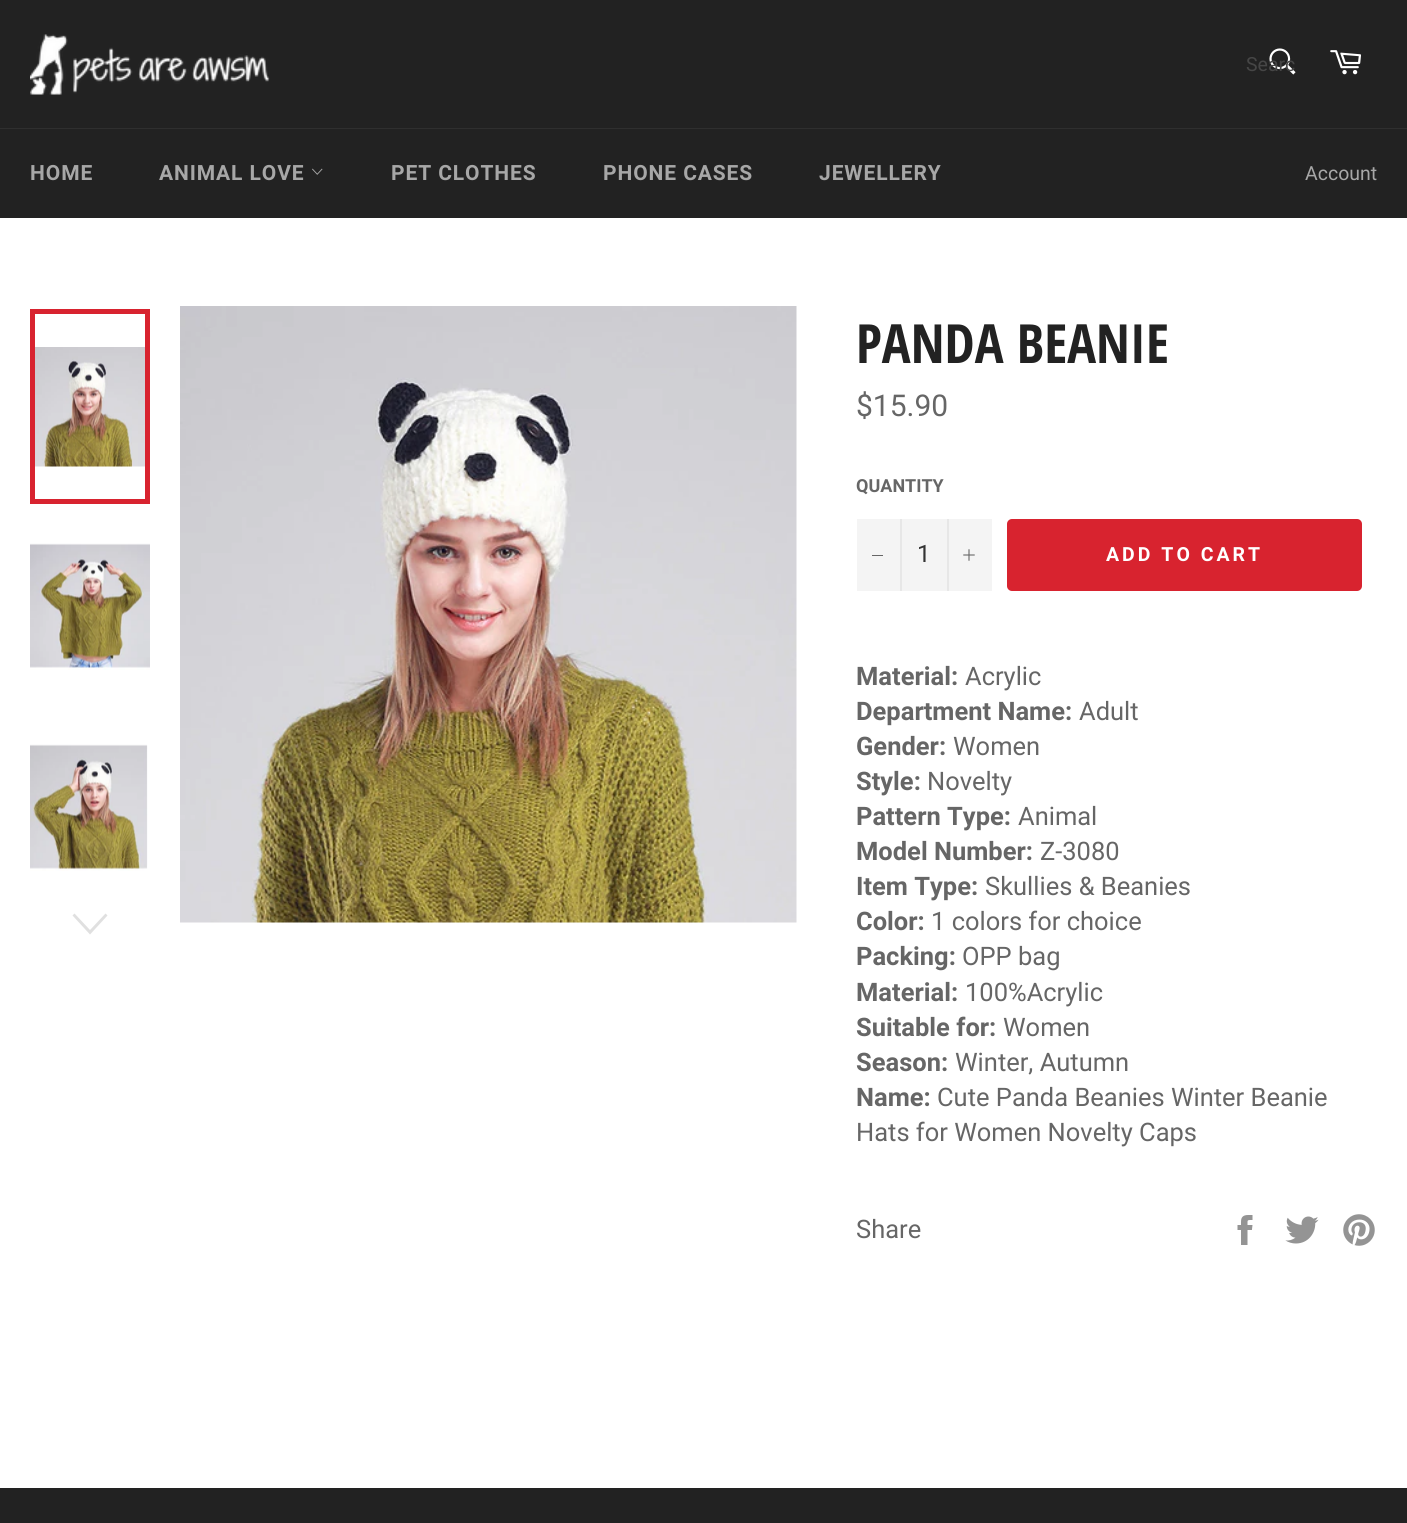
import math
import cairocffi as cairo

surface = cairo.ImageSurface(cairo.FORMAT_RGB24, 1407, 1523)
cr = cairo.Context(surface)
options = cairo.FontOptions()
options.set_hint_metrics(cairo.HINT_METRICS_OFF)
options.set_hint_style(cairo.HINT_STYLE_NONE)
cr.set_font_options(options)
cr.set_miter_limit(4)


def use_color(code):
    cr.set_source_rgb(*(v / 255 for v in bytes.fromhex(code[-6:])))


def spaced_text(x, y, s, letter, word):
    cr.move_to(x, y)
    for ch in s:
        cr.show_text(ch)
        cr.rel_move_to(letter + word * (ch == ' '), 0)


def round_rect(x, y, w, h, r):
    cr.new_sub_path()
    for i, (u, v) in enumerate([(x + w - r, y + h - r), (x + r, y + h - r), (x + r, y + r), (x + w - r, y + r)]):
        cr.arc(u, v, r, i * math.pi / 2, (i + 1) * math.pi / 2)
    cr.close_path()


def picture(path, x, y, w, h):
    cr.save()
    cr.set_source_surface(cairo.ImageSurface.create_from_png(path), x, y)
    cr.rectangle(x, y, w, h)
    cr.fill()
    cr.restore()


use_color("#ffffff")
cr.paint()
use_color("#222222")
cr.rectangle(0, 0, 1407, 128)
cr.fill()
picture("img1.png", 30, 34, 240, 61)
picture("img2.png", 1269, 48, 27, 27)
cr.select_font_face("Roboto")
cr.set_font_size(19.5)
use_color("#464646")
cr.move_to(1246, 71)
cr.show_text("Searc")
picture("img3.png", 1330, 50, 31, 25)
use_color("#2f2f2f")
cr.rectangle(0, 128, 1407, 1)
cr.fill()
use_color("#222222")
cr.rectangle(0, 129, 1407, 89)
cr.fill()
cr.select_font_face("Roboto", cairo.FONT_SLANT_NORMAL, cairo.FONT_WEIGHT_BOLD)
cr.set_font_size(21)
use_color("#a7a7a7")
spaced_text(30, 180, "HOME", 0.9, 0)
spaced_text(159, 180, "ANIMAL LOVE", 0.9, 0)
picture("img4.png", 312, 168, 11, 7)
spaced_text(391, 180, "PET CLOTHES", 0.9, 0)
spaced_text(603, 180, "PHONE CASES", 0.9, 0)
spaced_text(819, 180, "JEWELLERY", 0.9, 0)
cr.select_font_face("Roboto")
cr.set_font_size(19.5)
cr.move_to(1305, 180)
cr.show_text("Account")
picture("img5.png", 35, 347, 110, 120)
cr.rectangle(32.5, 311.5, 115, 190)
use_color("#d8232f")
cr.set_line_width(5)
cr.stroke()
picture("img6.png", 30, 543, 120, 127)
picture("img7.png", 30, 744, 118, 127)
use_color("#e0e0e0")
cr.new_path()
cr.move_to(105.5, 913.5)
cr.line_to(107.5, 915.5)
cr.line_to(90, 934.5)
cr.line_to(72.5, 915.5)
cr.line_to(74.5, 913.5)
cr.line_to(90, 930)
cr.close_path()
cr.fill()
picture("img8.png", 180, 306, 617, 617)
cr.select_font_face("Open Sans Condensed", cairo.FONT_SLANT_NORMAL, cairo.FONT_WEIGHT_BOLD)
cr.set_font_size(54)
use_color("#222222")
cr.move_to(856, 363)
cr.show_text("PANDA BEANIE")
cr.select_font_face("Roboto")
cr.set_font_size(30)
use_color("#666666")
cr.move_to(856, 416)
cr.show_text("$15.90")
cr.select_font_face("Roboto", cairo.FONT_SLANT_NORMAL, cairo.FONT_WEIGHT_BOLD)
cr.set_font_size(18)
cr.move_to(856, 492)
cr.show_text("QUANTITY")
use_color("#f4f4f4")
cr.rectangle(857, 519, 135, 72)
cr.fill()
use_color("#e7e7e7")
cr.rectangle(900, 519, 2, 72)
cr.fill()
use_color("#666666")
cr.rectangle(872, 555, 11, 1)
cr.fill()
cr.select_font_face("Roboto")
cr.set_font_size(24)
use_color("#333333")
cr.move_to(917, 562)
cr.show_text("1")
use_color("#e7e7e7")
cr.rectangle(947, 519, 2, 72)
cr.fill()
picture("img9.png", 963, 549, 12, 12)
use_color("#d8232f")
round_rect(1007, 519, 355, 72, 5)
cr.fill()
cr.select_font_face("Roboto", cairo.FONT_SLANT_NORMAL, cairo.FONT_WEIGHT_BOLD)
cr.set_font_size(19.5)
use_color("#ffffff")
spaced_text(1106, 561, "ADD TO CART", 3, 0)
cr.set_font_size(25.5)
use_color("#666666")
cr.move_to(856, 685)
cr.show_text("Material:")
cr.select_font_face("Roboto")
cr.move_to(965, 685)
cr.show_text("Acrylic")
cr.select_font_face("Roboto", cairo.FONT_SLANT_NORMAL, cairo.FONT_WEIGHT_BOLD)
cr.move_to(856, 720)
cr.show_text("Department Name:")
cr.select_font_face("Roboto")
cr.move_to(1079, 720)
cr.show_text("Adult")
cr.select_font_face("Roboto", cairo.FONT_SLANT_NORMAL, cairo.FONT_WEIGHT_BOLD)
cr.move_to(856, 755)
cr.show_text("Gender:")
cr.select_font_face("Roboto")
cr.move_to(953, 755)
cr.show_text("Women")
cr.select_font_face("Roboto", cairo.FONT_SLANT_NORMAL, cairo.FONT_WEIGHT_BOLD)
cr.move_to(856, 790)
cr.show_text("Style:")
cr.select_font_face("Roboto")
cr.move_to(927, 790)
cr.show_text("Novelty")
cr.select_font_face("Roboto", cairo.FONT_SLANT_NORMAL, cairo.FONT_WEIGHT_BOLD)
cr.move_to(856, 825)
cr.show_text("Pattern Type:")
cr.select_font_face("Roboto")
cr.move_to(1018, 825)
cr.show_text("Animal")
cr.select_font_face("Roboto", cairo.FONT_SLANT_NORMAL, cairo.FONT_WEIGHT_BOLD)
cr.move_to(856, 860)
cr.show_text("Model Number:")
cr.select_font_face("Roboto")
cr.move_to(1040, 860)
cr.show_text("Z-3080")
cr.select_font_face("Roboto", cairo.FONT_SLANT_NORMAL, cairo.FONT_WEIGHT_BOLD)
cr.move_to(856, 895)
cr.show_text("Item Type:")
cr.select_font_face("Roboto")
cr.move_to(985, 895)
cr.show_text("Skullies & Beanies")
cr.select_font_face("Roboto", cairo.FONT_SLANT_NORMAL, cairo.FONT_WEIGHT_BOLD)
cr.move_to(856, 930)
cr.show_text("Color:")
cr.select_font_face("Roboto")
cr.move_to(931, 930)
cr.show_text("1 colors for choice")
cr.select_font_face("Roboto", cairo.FONT_SLANT_NORMAL, cairo.FONT_WEIGHT_BOLD)
cr.move_to(856, 965)
cr.show_text("Packing:")
cr.select_font_face("Roboto")
cr.move_to(962, 965)
cr.show_text("OPP bag")
cr.select_font_face("Roboto", cairo.FONT_SLANT_NORMAL, cairo.FONT_WEIGHT_BOLD)
cr.move_to(856, 1001)
cr.show_text("Material:")
cr.select_font_face("Roboto")
cr.move_to(965, 1001)
cr.show_text("100%Acrylic")
cr.select_font_face("Roboto", cairo.FONT_SLANT_NORMAL, cairo.FONT_WEIGHT_BOLD)
cr.move_to(856, 1036)
cr.show_text("Suitable for:")
cr.select_font_face("Roboto")
cr.move_to(1003, 1036)
cr.show_text("Women")
cr.select_font_face("Roboto", cairo.FONT_SLANT_NORMAL, cairo.FONT_WEIGHT_BOLD)
cr.move_to(856, 1071)
cr.show_text("Season:")
cr.select_font_face("Roboto")
cr.move_to(955, 1071)
cr.show_text("Winter, Autumn")
cr.select_font_face("Roboto", cairo.FONT_SLANT_NORMAL, cairo.FONT_WEIGHT_BOLD)
cr.move_to(856, 1106)
cr.show_text("Name:")
cr.select_font_face("Roboto")
cr.move_to(937, 1106)
cr.show_text("Cute Panda Beanies Winter Beanie")
cr.move_to(856, 1141)
cr.show_text("Hats for Women Novelty Caps")
cr.move_to(856, 1238)
cr.show_text("Share")
picture("img10.png", 1237, 1215, 16, 30)
picture("img11.png", 1285, 1216, 34, 28)
picture("img12.png", 1343, 1214, 32, 32)
use_color("#222222")
cr.rectangle(0, 1488, 1407, 35)
cr.fill()
surface.write_to_png("result.png")
